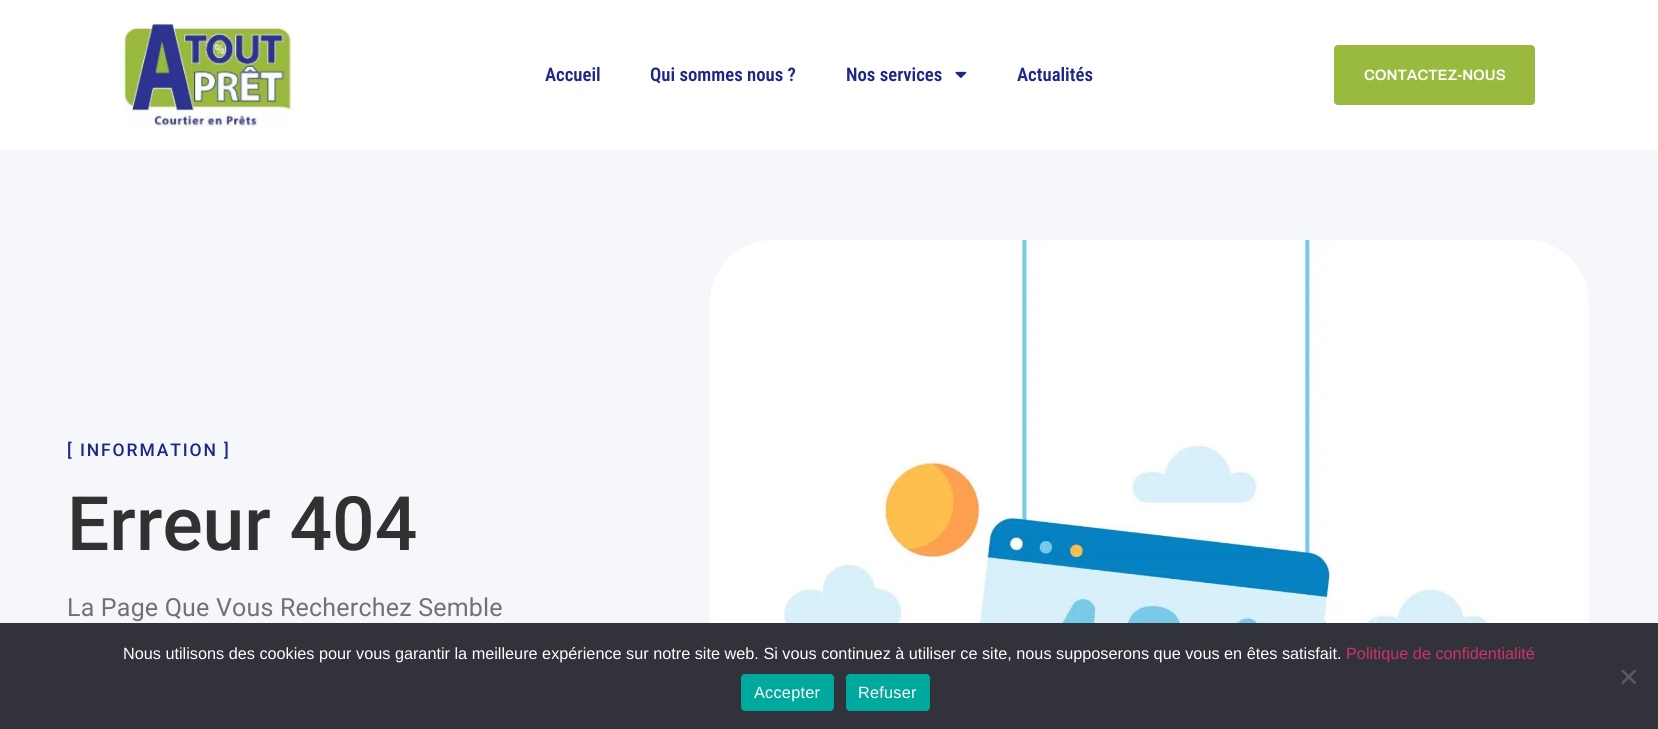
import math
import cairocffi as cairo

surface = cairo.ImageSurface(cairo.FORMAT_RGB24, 1658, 729)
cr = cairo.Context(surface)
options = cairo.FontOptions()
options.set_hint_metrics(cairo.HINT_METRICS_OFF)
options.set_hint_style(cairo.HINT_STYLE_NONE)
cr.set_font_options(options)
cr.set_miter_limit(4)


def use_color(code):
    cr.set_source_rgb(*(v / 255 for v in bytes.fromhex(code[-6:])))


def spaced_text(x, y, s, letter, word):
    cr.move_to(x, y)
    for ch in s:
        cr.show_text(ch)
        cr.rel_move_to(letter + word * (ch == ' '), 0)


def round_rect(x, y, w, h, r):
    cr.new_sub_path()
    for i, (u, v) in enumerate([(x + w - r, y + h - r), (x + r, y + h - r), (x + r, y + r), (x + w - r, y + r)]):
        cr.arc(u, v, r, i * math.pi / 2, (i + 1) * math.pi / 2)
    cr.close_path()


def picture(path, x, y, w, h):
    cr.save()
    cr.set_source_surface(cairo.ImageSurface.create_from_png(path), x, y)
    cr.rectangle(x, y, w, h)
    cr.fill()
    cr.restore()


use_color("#ffffff")
cr.paint()
picture("img1.png", 119, 22, 175, 107)
cr.select_font_face("Roboto Condensed SemiBold")
cr.set_font_size(18.75)
use_color("#1e2789")
cr.move_to(545, 81)
cr.show_text("Accueil")
cr.move_to(650, 81)
cr.show_text("Qui sommes nous ?")
cr.move_to(846, 81)
cr.show_text("Nos services")
picture("img2.png", 955, 71, 12, 7)
cr.move_to(1017, 81)
cr.show_text("Actualités")
use_color("#9aba3f")
round_rect(1334, 45, 201, 60, 4)
cr.fill()
cr.select_font_face("Archivo SemiBold")
cr.set_font_size(15)
use_color("#ffffff")
cr.move_to(1364, 80)
cr.show_text("CONTACTEZ-NOUS")
use_color("#f5f7fa")
cr.rectangle(0, 150, 1658, 473)
cr.fill()
cr.select_font_face("Roboto Medium")
cr.set_font_size(17.5)
use_color("#1e2789")
spaced_text(67, 456, "[ INFORMATION ]", 1.9, 0)
cr.set_font_size(75)
use_color("#313132")
cr.move_to(67, 550)
cr.show_text("Erreur 404")
cr.select_font_face("Roboto")
cr.set_font_size(25)
use_color("#717273")
spaced_text(67, 616, "La Page Que Vous Recherchez Semble", 0.2, 0)
picture("img3.png", 710, 240, 879, 383)
use_color("#32323a")
cr.rectangle(0, 623, 1658, 106)
cr.fill()
cr.select_font_face("Liberation Sans")
cr.set_font_size(16.25)
use_color("#ffffff")
cr.move_to(123, 659)
cr.show_text("Nous utilisons des cookies pour vous garantir la meilleure expérience sur notre site web. Si vous continuez à utiliser ce site, nous supposerons que vous en êtes satisfait.")
use_color("#cc3366")
cr.move_to(1346, 659)
cr.show_text("Politique de confidentialité")
use_color("#59595d")
cr.new_path()
cr.move_to(1634.5, 669.5)
cr.line_to(1636.5, 671)
cr.line_to(1623, 684.5)
cr.line_to(1621, 682.5)
cr.close_path()
cr.fill()
cr.new_path()
cr.move_to(1621, 671)
cr.line_to(1623, 669.5)
cr.line_to(1636.5, 682.5)
cr.line_to(1634.5, 684.5)
cr.close_path()
cr.fill()
use_color("#00a99d")
round_rect(741, 674, 93, 37, 4)
cr.fill()
use_color("#ffffff")
spaced_text(754, 698, "Accepter", 0.25, 0)
use_color("#00a99d")
round_rect(846, 674, 84, 37, 4)
cr.fill()
use_color("#ffffff")
spaced_text(858, 698, "Refuser", 0.25, 0)
surface.write_to_png("result.png")
